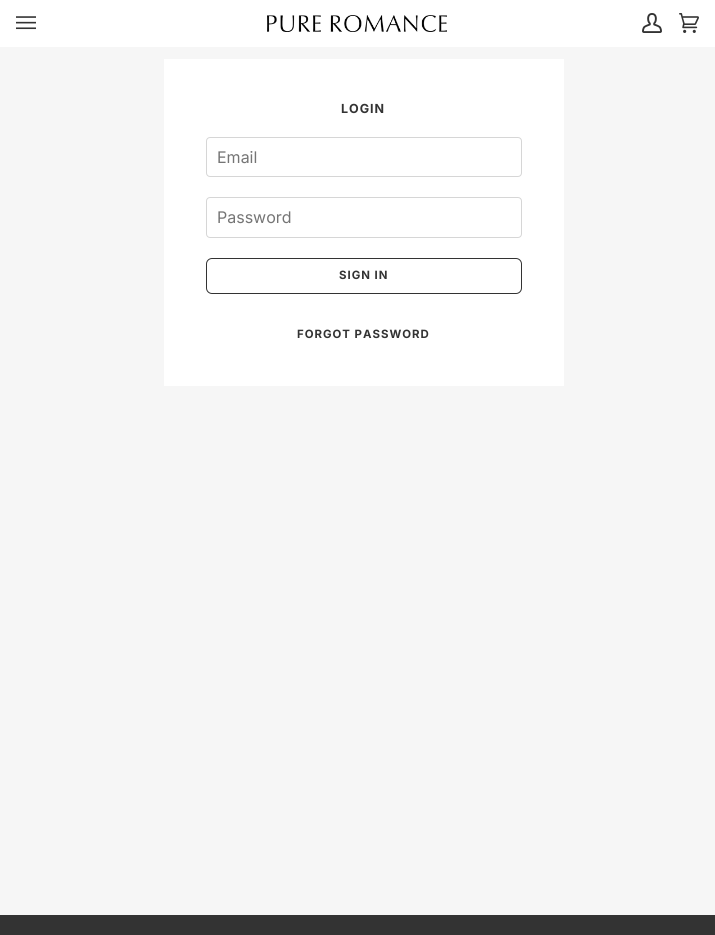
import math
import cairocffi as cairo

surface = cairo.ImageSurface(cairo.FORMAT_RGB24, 715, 935)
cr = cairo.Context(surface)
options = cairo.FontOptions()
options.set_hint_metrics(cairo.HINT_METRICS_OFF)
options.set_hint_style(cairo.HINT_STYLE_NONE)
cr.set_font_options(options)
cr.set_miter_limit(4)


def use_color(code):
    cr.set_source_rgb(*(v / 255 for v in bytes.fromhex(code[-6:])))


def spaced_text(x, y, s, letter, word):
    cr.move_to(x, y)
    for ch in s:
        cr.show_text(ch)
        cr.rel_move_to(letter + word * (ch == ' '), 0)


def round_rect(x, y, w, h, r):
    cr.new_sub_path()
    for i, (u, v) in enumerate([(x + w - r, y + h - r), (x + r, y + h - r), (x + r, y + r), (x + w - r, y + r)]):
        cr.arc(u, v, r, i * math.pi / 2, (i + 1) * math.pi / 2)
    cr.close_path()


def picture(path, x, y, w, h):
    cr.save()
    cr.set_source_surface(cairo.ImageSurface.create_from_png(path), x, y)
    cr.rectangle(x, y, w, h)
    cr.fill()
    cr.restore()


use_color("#ffffff")
cr.paint()
picture("img1.png", 16, 16, 20, 14)
picture("img2.png", 267, 15, 180, 17)
picture("img3.png", 642, 13, 20, 20)
picture("img4.png", 679, 13, 20, 20)
use_color("#f6f6f6")
cr.rectangle(0, 47, 715, 868)
cr.fill()
use_color("#ffffff")
cr.rectangle(164, 59, 400, 327)
cr.fill()
cr.select_font_face("Inter", cairo.FONT_SLANT_NORMAL, cairo.FONT_WEIGHT_BOLD)
cr.set_font_size(12.5)
use_color("#333333")
spaced_text(341, 113, "LOGIN", 1, 0)
round_rect(206.5, 137.5, 315, 39, 3.5)
use_color("#d6d6d6")
cr.set_line_width(1)
cr.stroke()
cr.select_font_face("Inter")
cr.set_font_size(16)
use_color("#757575")
cr.move_to(217, 163)
cr.show_text("Email")
round_rect(206.5, 197.5, 315, 40, 3.5)
use_color("#d6d6d6")
cr.stroke()
use_color("#757575")
cr.move_to(217, 223)
cr.show_text("Password")
round_rect(206.5, 258.5, 315, 35, 5.5)
use_color("#333333")
cr.stroke()
cr.select_font_face("Inter", cairo.FONT_SLANT_NORMAL, cairo.FONT_WEIGHT_BOLD)
cr.set_font_size(11.4)
spaced_text(339, 279, "SIGN IN", 1, 0)
spaced_text(297, 338, "FORGOT PASSWORD", 1, 0)
cr.rectangle(0, 915, 715, 20)
cr.fill()
surface.write_to_png("result.png")
